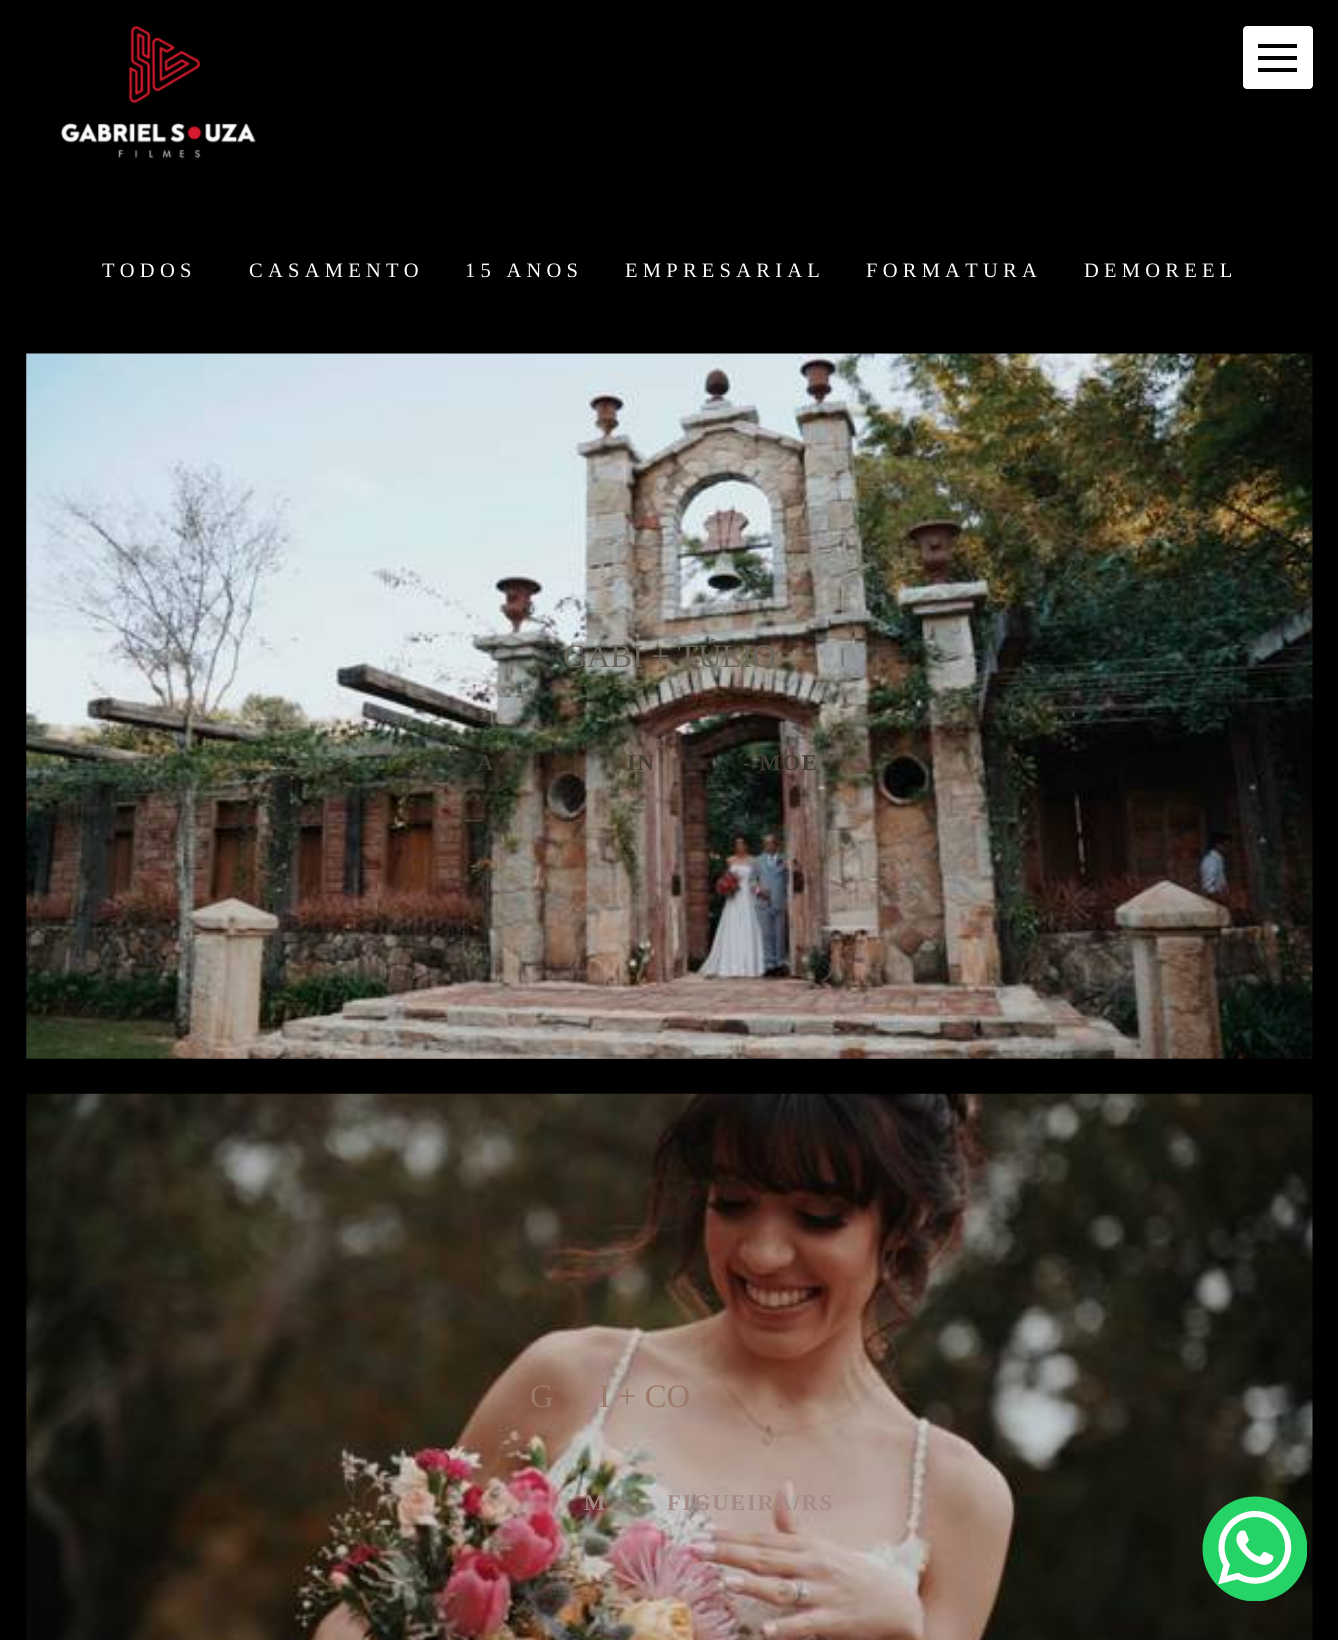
import math
import cairocffi as cairo

surface = cairo.ImageSurface(cairo.FORMAT_RGB24, 1338, 1640)
cr = cairo.Context(surface)
options = cairo.FontOptions()
options.set_hint_metrics(cairo.HINT_METRICS_OFF)
options.set_hint_style(cairo.HINT_STYLE_NONE)
cr.set_font_options(options)
cr.set_miter_limit(4)


def use_color(code):
    cr.set_source_rgb(*(v / 255 for v in bytes.fromhex(code[-6:])))


def spaced_text(x, y, s, letter, word):
    cr.move_to(x, y)
    for ch in s:
        cr.show_text(ch)
        cr.rel_move_to(letter + word * (ch == ' '), 0)


def round_rect(x, y, w, h, r):
    cr.new_sub_path()
    for i, (u, v) in enumerate([(x + w - r, y + h - r), (x + r, y + h - r), (x + r, y + r), (x + w - r, y + r)]):
        cr.arc(u, v, r, i * math.pi / 2, (i + 1) * math.pi / 2)
    cr.close_path()


def picture(path, x, y, w, h):
    cr.save()
    cr.set_source_surface(cairo.ImageSurface.create_from_png(path), x, y)
    cr.rectangle(x, y, w, h)
    cr.fill()
    cr.restore()


use_color("#000000")
cr.paint()
picture("img1.png", 61, 26, 195, 133)
use_color("#ffffff")
round_rect(1243, 26, 70, 63, 4)
cr.fill()
use_color("#000000")
cr.rectangle(1258, 44, 39, 4)
cr.fill()
cr.rectangle(1258, 56, 39, 4)
cr.fill()
cr.rectangle(1258, 68, 39, 4)
cr.fill()
cr.select_font_face("Liberation Serif")
cr.set_font_size(20.5)
use_color("#ffffff")
spaced_text(102, 277, "TODOS", 5.25, 0)
spaced_text(249, 277, "CASAMENTO", 5.25, 0)
spaced_text(465, 277, "15 ANOS", 5.25, 0)
spaced_text(625, 277, "EMPRESARIAL", 5.25, 0)
spaced_text(866, 277, "FORMATURA", 5.25, 0)
spaced_text(1084, 277, "DEMOREEL", 5.25, 0)
picture("img2.png", 26, 353, 1287, 706)
cr.set_font_size(32.75)
use_color("#6a655a")
cr.move_to(563, 667)
cr.show_text("GABI + TÚLIO")
cr.select_font_face("Liberation Serif", cairo.FONT_SLANT_NORMAL, cairo.FONT_WEIGHT_BOLD)
cr.set_font_size(22.5)
use_color("#433c32")
spaced_text(477, 770, "A", 1.75, 0)
spaced_text(627, 770, "IN", 1.75, 0)
spaced_text(743, 770, "- MOE", 1.75, 0)
picture("img3.png", 26, 1093, 1287, 547)
cr.select_font_face("Liberation Serif")
cr.set_font_size(32.75)
use_color("#9b7869")
cr.move_to(530, 1407)
cr.show_text("G")
cr.move_to(599, 1407)
cr.show_text("I + CO")
cr.select_font_face("Liberation Serif", cairo.FONT_SLANT_NORMAL, cairo.FONT_WEIGHT_BOLD)
cr.set_font_size(22.5)
use_color("#a38a85")
spaced_text(584, 1510, "M", 1.75, 0)
spaced_text(667, 1510, "FIGUEIRA/RS", 1.75, 0)
picture("img4.png", 1202, 1496, 105, 105)
surface.write_to_png("result.png")
